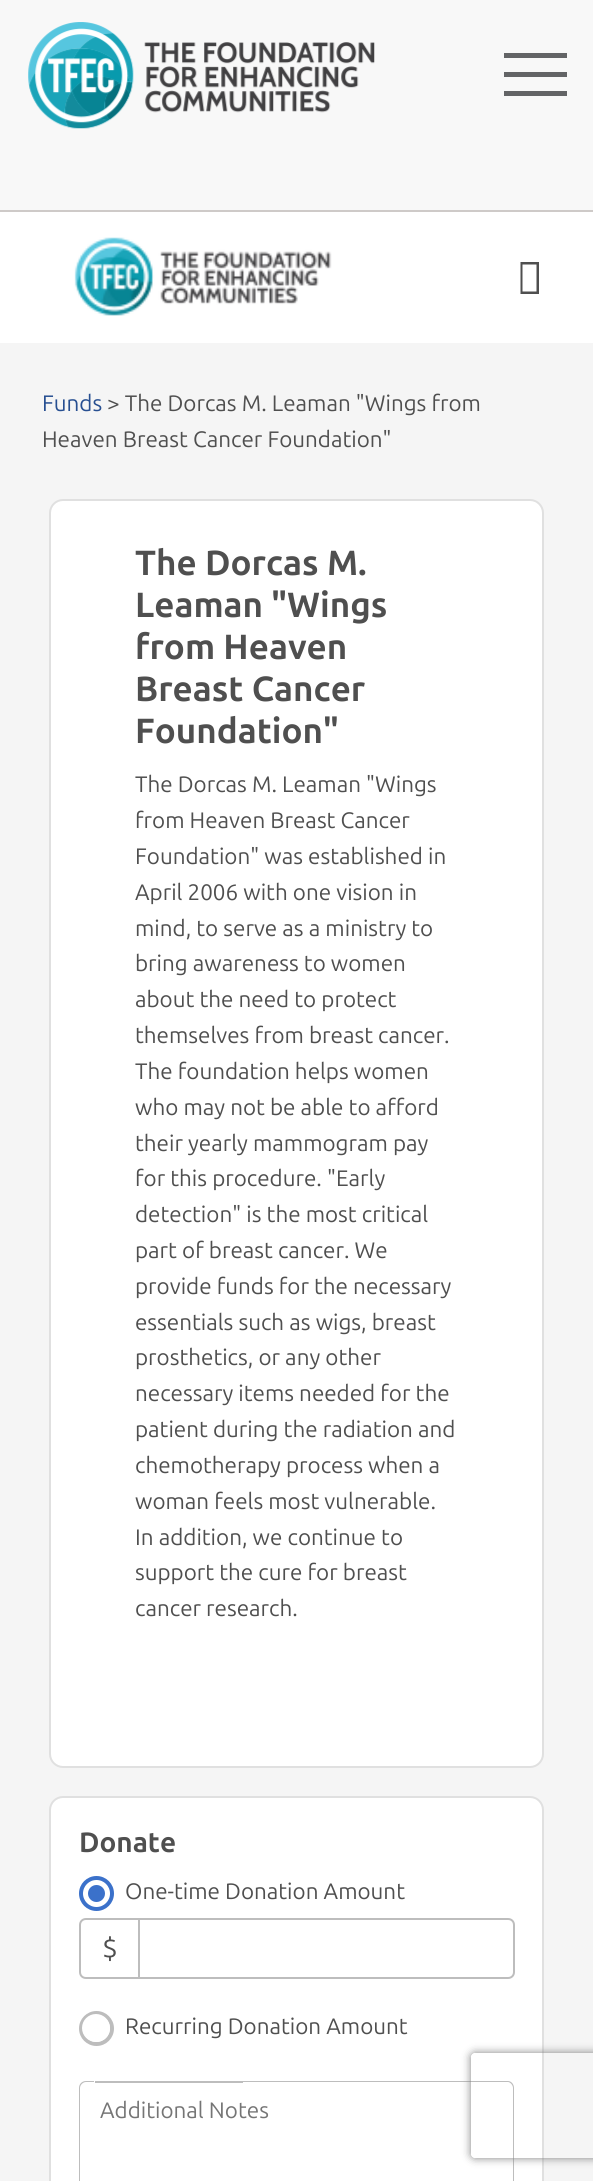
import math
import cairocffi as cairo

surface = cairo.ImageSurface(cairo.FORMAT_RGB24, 593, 2181)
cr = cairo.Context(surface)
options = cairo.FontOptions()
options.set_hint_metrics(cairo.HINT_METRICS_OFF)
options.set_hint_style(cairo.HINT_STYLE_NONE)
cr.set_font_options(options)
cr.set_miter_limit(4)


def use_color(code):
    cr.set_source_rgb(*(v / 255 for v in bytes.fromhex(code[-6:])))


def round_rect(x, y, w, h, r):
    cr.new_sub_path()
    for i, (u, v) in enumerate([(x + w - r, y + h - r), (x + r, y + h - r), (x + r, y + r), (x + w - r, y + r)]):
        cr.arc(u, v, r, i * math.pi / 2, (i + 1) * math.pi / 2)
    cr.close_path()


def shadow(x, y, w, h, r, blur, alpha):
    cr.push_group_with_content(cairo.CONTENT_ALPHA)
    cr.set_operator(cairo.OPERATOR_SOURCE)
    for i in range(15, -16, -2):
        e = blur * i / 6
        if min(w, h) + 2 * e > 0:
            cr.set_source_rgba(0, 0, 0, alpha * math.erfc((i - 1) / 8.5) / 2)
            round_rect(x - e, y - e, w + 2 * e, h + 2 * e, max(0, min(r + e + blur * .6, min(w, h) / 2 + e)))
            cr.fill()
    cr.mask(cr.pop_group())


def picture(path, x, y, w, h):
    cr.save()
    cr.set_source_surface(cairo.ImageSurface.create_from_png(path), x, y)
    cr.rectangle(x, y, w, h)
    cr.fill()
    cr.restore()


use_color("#f5f5f5")
cr.paint()
use_color("#f8f8f8")
cr.rectangle(0, 0, 593, 210)
cr.fill()
use_color("#cecac8")
cr.rectangle(0, 210, 593, 2)
cr.fill()
picture("img1.png", 28, 22, 347, 107)
use_color("#636466")
cr.rectangle(504, 53, 63, 5)
cr.fill()
cr.rectangle(504, 72, 63, 5)
cr.fill()
cr.rectangle(504, 91, 63, 5)
cr.fill()
use_color("#ffffff")
cr.rectangle(0, 212, 593, 131)
cr.fill()
picture("img2.png", 74, 237, 258, 79)
use_color("#4f4f4f")
cr.new_path()
cr.move_to(520.5, 294)
cr.line_to(520.5, 262)
cr.line_to(539, 262)
cr.line_to(539, 294)
cr.close_path()
cr.move_to(522.5, 291.5)
cr.line_to(536.5, 291.5)
cr.line_to(536.5, 264.5)
cr.line_to(522.5, 264.5)
cr.close_path()
cr.fill()
cr.select_font_face("Ubuntu")
cr.set_font_size(22.4)
use_color("#274f91")
cr.move_to(42, 411)
cr.show_text("Funds")
use_color("#4f4f4f")
cr.move_to(107, 411)
cr.show_text("> The Dorcas M. Leaman \"Wings from")
cr.move_to(42, 447)
cr.show_text("Heaven Breast Cancer Foundation\"")
use_color("#ffffff")
round_rect(50, 500, 493, 1267, 13)
cr.fill_preserve()
use_color("#e0e0e0")
cr.stroke()
cr.select_font_face("Ubuntu", cairo.FONT_SLANT_NORMAL, cairo.FONT_WEIGHT_BOLD)
cr.set_font_size(35)
use_color("#4f4f4f")
cr.move_to(135, 575)
cr.show_text("The Dorcas M.")
cr.move_to(135, 617)
cr.show_text("Leaman \"Wings")
cr.move_to(135, 659)
cr.show_text("from Heaven")
cr.move_to(135, 701)
cr.show_text("Breast Cancer")
cr.move_to(135, 743)
cr.show_text("Foundation\"")
cr.select_font_face("Ubuntu")
cr.set_font_size(22.4)
cr.move_to(135, 792)
cr.show_text("The Dorcas M. Leaman \"Wings")
cr.move_to(135, 828)
cr.show_text("from Heaven Breast Cancer")
cr.move_to(135, 864)
cr.show_text("Foundation\" was established in")
cr.move_to(135, 900)
cr.show_text("April 2006 with one vision in")
cr.move_to(135, 936)
cr.show_text("mind, to serve as a ministry to")
cr.move_to(135, 971)
cr.show_text("bring awareness to women")
cr.move_to(135, 1007)
cr.show_text("about the need to protect")
cr.move_to(135, 1043)
cr.show_text("themselves from breast cancer.")
cr.move_to(135, 1079)
cr.show_text("The foundation helps women")
cr.move_to(135, 1115)
cr.show_text("who may not be able to afford")
cr.move_to(135, 1151)
cr.show_text("their yearly mammogram pay")
cr.move_to(135, 1186)
cr.show_text("for this procedure. \"Early")
cr.move_to(135, 1222)
cr.show_text("detection\" is the most critical")
cr.move_to(135, 1258)
cr.show_text("part of breast cancer. We")
cr.move_to(135, 1294)
cr.show_text("provide funds for the necessary")
cr.move_to(135, 1330)
cr.show_text("essentials such as wigs, breast")
cr.move_to(135, 1365)
cr.show_text("prosthetics, or any other")
cr.move_to(135, 1401)
cr.show_text("necessary items needed for the")
cr.move_to(135, 1437)
cr.show_text("patient during the radiation and")
cr.move_to(135, 1473)
cr.show_text("chemotherapy process when a")
cr.move_to(135, 1509)
cr.show_text("woman feels most vulnerable.")
cr.move_to(135, 1545)
cr.show_text("In addition, we continue to")
cr.move_to(135, 1580)
cr.show_text("support the cure for breast")
cr.move_to(135, 1616)
cr.show_text("cancer research.")
use_color("#ffffff")
round_rect(50, 1797, 493, 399, 13)
cr.fill_preserve()
use_color("#e0e0e0")
cr.stroke()
cr.select_font_face("Ubuntu", cairo.FONT_SLANT_NORMAL, cairo.FONT_WEIGHT_BOLD)
cr.set_font_size(28)
use_color("#4f4f4f")
cr.move_to(79, 1852)
cr.show_text("Donate")
cr.new_path()
cr.arc(96.5, 1893.5, 15.5, 0, 2 * math.pi)
use_color("#3b71ca")
cr.set_line_width(4)
cr.stroke()
cr.arc(96.5, 1893.5, 8.5, 0, 2 * math.pi)
cr.fill()
cr.select_font_face("Ubuntu")
cr.set_font_size(22.4)
use_color("#4f4f4f")
cr.move_to(125, 1899)
cr.show_text("One-time Donation Amount")
cr.new_path()
cr.move_to(86, 1919)
cr.line_to(139, 1919)
cr.line_to(139, 1978)
cr.line_to(86, 1978)
cr.curve_to(82.5, 1978, 80, 1975.5, 80, 1972)
cr.line_to(80, 1925)
cr.curve_to(80, 1921.5, 82.5, 1919, 86, 1919)
cr.close_path()
use_color("#bdbdbd")
cr.set_line_width(2)
cr.stroke()
cr.set_font_size(28)
use_color("#4f4f4f")
cr.move_to(102, 1958)
cr.show_text("$")
cr.new_path()
cr.move_to(139, 1919)
cr.line_to(508, 1919)
cr.curve_to(511.5, 1919, 514, 1921.5, 514, 1925)
cr.line_to(514, 1972)
cr.curve_to(514, 1975.5, 511.5, 1978, 508, 1978)
cr.line_to(139, 1978)
cr.close_path()
use_color("#bdbdbd")
cr.stroke()
cr.arc(96.5, 2028.5, 15.5, 0, 2 * math.pi)
cr.set_line_width(4)
cr.stroke()
use_color("#ffffff")
cr.arc(96, 2028, 14, 0, 2 * math.pi)
cr.fill()
cr.set_font_size(22.4)
use_color("#4f4f4f")
cr.move_to(125, 2034)
cr.show_text("Recurring Donation Amount")
use_color("#bdbdbd")
cr.set_fill_rule(cairo.FILL_RULE_EVEN_ODD)
cr.new_path()
cr.move_to(86, 2081)
cr.line_to(94, 2081)
cr.line_to(94, 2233)
cr.line_to(86, 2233)
cr.curve_to(82, 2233, 79, 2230, 79, 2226)
cr.line_to(79, 2088)
cr.curve_to(79, 2084, 82, 2081, 86, 2081)
cr.close_path()
cr.move_to(86, 2082)
cr.line_to(94, 2082)
cr.line_to(94, 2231)
cr.line_to(86, 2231)
cr.curve_to(83, 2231, 80, 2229, 80, 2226)
cr.line_to(80, 2088)
cr.curve_to(80, 2085, 83, 2082, 86, 2082)
cr.close_path()
cr.fill()
cr.rectangle(95, 2081, 148, 2)
cr.fill()
use_color("#757575")
cr.move_to(100, 2118)
cr.show_text("Additional Notes")
use_color("#bdbdbd")
cr.new_path()
cr.move_to(243, 2081)
cr.line_to(508, 2081)
cr.curve_to(511, 2081, 514, 2084, 514, 2088)
cr.line_to(514, 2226)
cr.curve_to(514, 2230, 511, 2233, 508, 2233)
cr.line_to(243, 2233)
cr.close_path()
cr.move_to(243, 2082)
cr.line_to(508, 2082)
cr.curve_to(510, 2082, 513, 2085, 513, 2088)
cr.line_to(513, 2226)
cr.curve_to(513, 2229, 510, 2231, 508, 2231)
cr.line_to(243, 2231)
cr.close_path()
cr.fill()
cr.save()
cr.new_path()
cr.move_to(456, 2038)
cr.line_to(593, 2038)
cr.line_to(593, 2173)
cr.line_to(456, 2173)
cr.close_path()
cr.move_to(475, 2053)
cr.line_to(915, 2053)
cr.curve_to(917, 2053, 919, 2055, 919, 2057)
cr.line_to(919, 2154)
cr.curve_to(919, 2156, 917, 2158, 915, 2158)
cr.line_to(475, 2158)
cr.curve_to(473, 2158, 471, 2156, 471, 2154)
cr.line_to(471, 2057)
cr.curve_to(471, 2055, 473, 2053, 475, 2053)
cr.close_path()
cr.clip()
use_color("#808080")
shadow(471, 2053, 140, 105, 4, 4.5, 1)
cr.restore()
surface.write_to_png("result.png")
